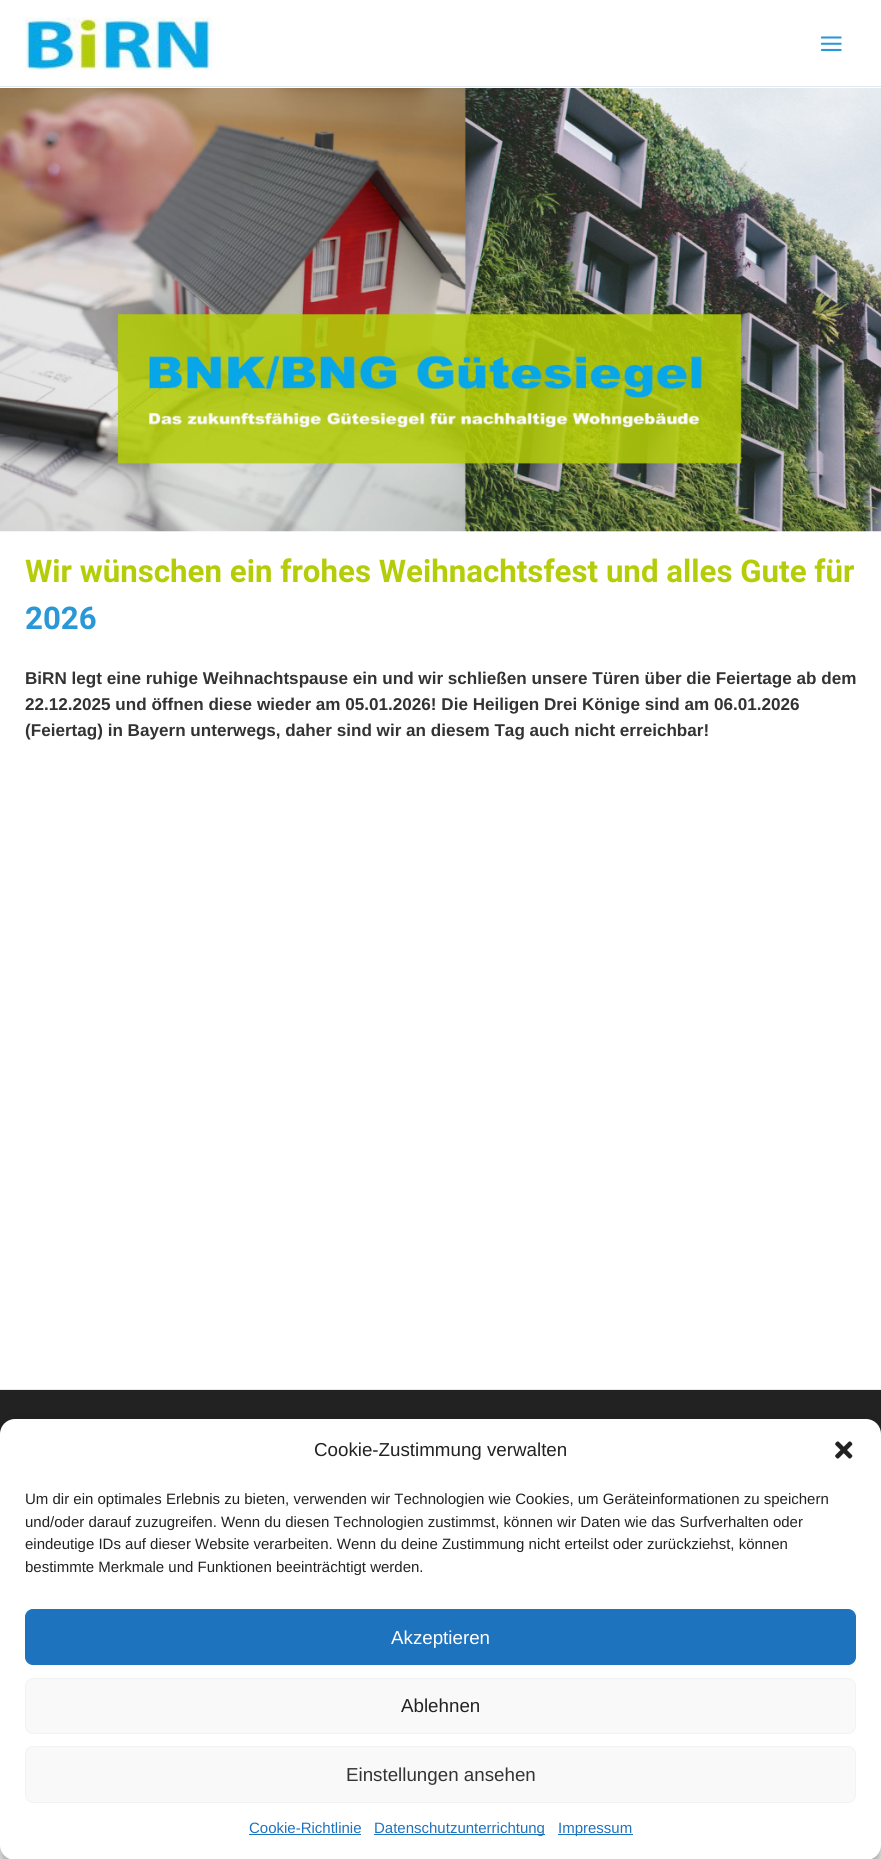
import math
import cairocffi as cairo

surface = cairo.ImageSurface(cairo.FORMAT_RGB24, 881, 1859)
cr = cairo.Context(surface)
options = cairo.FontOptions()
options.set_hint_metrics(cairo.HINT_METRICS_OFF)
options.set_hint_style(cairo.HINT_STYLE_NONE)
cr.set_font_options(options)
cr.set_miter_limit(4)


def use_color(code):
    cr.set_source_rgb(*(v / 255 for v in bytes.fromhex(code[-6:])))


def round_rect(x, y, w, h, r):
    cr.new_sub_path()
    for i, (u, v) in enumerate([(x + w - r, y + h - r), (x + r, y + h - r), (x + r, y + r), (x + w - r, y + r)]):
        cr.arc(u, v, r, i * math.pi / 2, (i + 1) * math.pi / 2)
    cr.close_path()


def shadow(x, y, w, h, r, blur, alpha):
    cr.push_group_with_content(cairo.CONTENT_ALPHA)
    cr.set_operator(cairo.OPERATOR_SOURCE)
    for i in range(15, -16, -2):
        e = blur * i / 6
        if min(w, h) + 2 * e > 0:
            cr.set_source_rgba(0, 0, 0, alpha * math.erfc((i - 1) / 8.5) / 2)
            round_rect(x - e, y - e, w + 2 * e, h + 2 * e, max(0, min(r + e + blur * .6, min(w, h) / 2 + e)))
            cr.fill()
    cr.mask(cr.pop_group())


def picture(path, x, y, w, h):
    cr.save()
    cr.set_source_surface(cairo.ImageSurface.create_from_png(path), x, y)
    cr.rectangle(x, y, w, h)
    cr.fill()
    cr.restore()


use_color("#ffffff")
cr.paint()
use_color("#e2e8f0")
cr.rectangle(0, 86, 881, 1)
cr.fill()
picture("img1.png", 25, 17, 188, 53)
picture("img2.png", 820, 36, 22, 16)
picture("img3.png", 0, 88, 881, 444)
cr.select_font_face("Roboto", cairo.FONT_SLANT_NORMAL, cairo.FONT_WEIGHT_BOLD)
cr.set_font_size(31.25)
use_color("#b4cd08")
cr.move_to(25, 582)
cr.show_text("Wir wünschen ein frohes Weihnachtsfest und alles Gute für")
use_color("#2a98d6")
cr.move_to(25, 629)
cr.show_text("2026")
cr.select_font_face("Liberation Sans", cairo.FONT_SLANT_NORMAL, cairo.FONT_WEIGHT_BOLD)
cr.set_font_size(17.1)
use_color("#333333")
cr.move_to(25, 684)
cr.show_text("BiRN legt eine ruhige Weihnachtspause ein und wir schließen unsere Türen über die Feiertage ab dem")
cr.move_to(25, 710)
cr.show_text("22.12.2025 und öffnen diese wieder am 05.01.2026! Die Heiligen Drei Könige sind am 06.01.2026")
cr.move_to(25, 736)
cr.show_text("(Feiertag) in Bayern unterwegs, daher sind wir an diesem Tag auch nicht erreichbar!")
use_color("#222222")
cr.rectangle(0, 1390, 881, 44)
cr.fill()
use_color("#e2e8f0")
cr.rectangle(0, 1389, 881, 1)
cr.fill()
use_color("#000000")
shadow(0, 1426, 881, 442, 15, 4, 0.23)
shadow(0, 1431, 881, 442, 15, 12.5, 0.19)
use_color("#ffffff")
round_rect(0, 1419, 881, 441, 15)
cr.fill()
cr.select_font_face("Liberation Sans")
cr.set_font_size(18.75)
use_color("#222222")
cr.move_to(314, 1456)
cr.show_text("Cookie-Zustimmung verwalten")
picture("img4.png", 835, 1441, 18, 18)
cr.set_font_size(15)
cr.move_to(25, 1504)
cr.show_text("Um dir ein optimales Erlebnis zu bieten, verwenden wir Technologien wie Cookies, um Geräteinformationen zu speichern")
cr.move_to(25, 1527)
cr.show_text("und/oder darauf zuzugreifen. Wenn du diesen Technologien zustimmst, können wir Daten wie das Surfverhalten oder")
cr.move_to(25, 1549)
cr.show_text("eindeutige IDs auf dieser Website verarbeiten. Wenn du deine Zustimmung nicht erteilst oder zurückziehst, können")
cr.move_to(25, 1572)
cr.show_text("bestimmte Merkmale und Funktionen beeinträchtigt werden.")
use_color("#1e73be")
round_rect(25.5, 1609.5, 830, 55, 7.5)
cr.fill_preserve()
cr.set_line_width(1)
cr.stroke()
cr.set_font_size(18.75)
use_color("#ffffff")
cr.move_to(391, 1644)
cr.show_text("Akzeptieren")
use_color("#f9f9f9")
round_rect(25.5, 1678.5, 830, 55, 7.5)
cr.fill_preserve()
use_color("#f2f2f2")
cr.stroke()
use_color("#222222")
cr.move_to(401, 1712)
cr.show_text("Ablehnen")
use_color("#f9f9f9")
round_rect(25.5, 1746.5, 830, 56, 7.5)
cr.fill_preserve()
use_color("#f2f2f2")
cr.stroke()
use_color("#333333")
cr.move_to(346, 1781)
cr.show_text("Einstellungen ansehen")
cr.set_font_size(15)
use_color("#1e73be")
cr.move_to(249, 1833)
cr.show_text("Cookie-Richtlinie")
cr.rectangle(249, 1834, 112, 1)
cr.fill()
cr.rectangle(374, 1834, 171, 1)
cr.fill()
cr.move_to(374, 1833)
cr.show_text("Datenschutzunterrichtung")
cr.rectangle(558, 1834, 75, 1)
cr.fill()
cr.move_to(558, 1833)
cr.show_text("Impressum")
surface.write_to_png("result.png")
